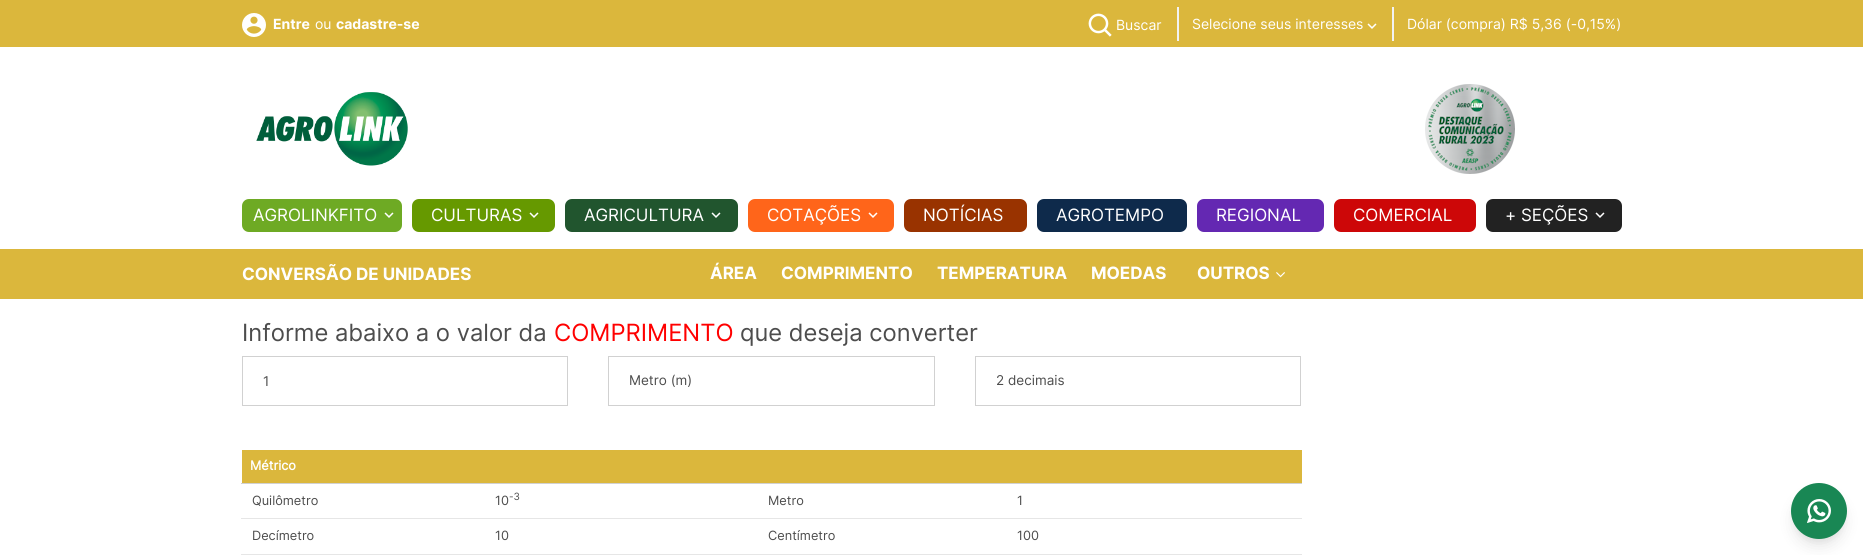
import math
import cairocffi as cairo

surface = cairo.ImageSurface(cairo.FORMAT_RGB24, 1863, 555)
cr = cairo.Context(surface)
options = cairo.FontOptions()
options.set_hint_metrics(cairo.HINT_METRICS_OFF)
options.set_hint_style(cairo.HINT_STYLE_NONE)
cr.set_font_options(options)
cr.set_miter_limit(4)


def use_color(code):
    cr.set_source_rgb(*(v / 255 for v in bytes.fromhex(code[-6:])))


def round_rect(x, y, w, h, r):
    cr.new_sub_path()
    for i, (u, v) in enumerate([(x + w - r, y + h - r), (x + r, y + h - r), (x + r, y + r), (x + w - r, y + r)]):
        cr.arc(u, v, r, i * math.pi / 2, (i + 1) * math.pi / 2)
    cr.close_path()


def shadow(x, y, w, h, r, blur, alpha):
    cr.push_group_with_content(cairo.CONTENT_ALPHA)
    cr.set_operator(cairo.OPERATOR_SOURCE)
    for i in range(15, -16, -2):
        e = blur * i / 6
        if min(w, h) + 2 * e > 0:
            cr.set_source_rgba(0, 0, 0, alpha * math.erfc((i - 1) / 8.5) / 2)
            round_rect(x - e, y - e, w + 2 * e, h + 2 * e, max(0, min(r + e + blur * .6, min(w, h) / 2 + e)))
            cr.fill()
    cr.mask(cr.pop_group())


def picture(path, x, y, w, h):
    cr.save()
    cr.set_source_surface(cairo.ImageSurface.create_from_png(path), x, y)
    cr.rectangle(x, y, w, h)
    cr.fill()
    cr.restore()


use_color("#ffffff")
cr.paint()
use_color("#dbb73c")
cr.rectangle(0, 0, 1863, 47)
cr.fill()
picture("img1.png", 242, 13, 24, 24)
cr.select_font_face("Inter", cairo.FONT_SLANT_NORMAL, cairo.FONT_WEIGHT_BOLD)
cr.set_font_size(14)
use_color("#ffffff")
cr.move_to(273, 29)
cr.show_text("Entre")
cr.select_font_face("Inter")
cr.move_to(315, 29)
cr.show_text("ou")
cr.select_font_face("Inter", cairo.FONT_SLANT_NORMAL, cairo.FONT_WEIGHT_BOLD)
cr.move_to(336, 29)
cr.show_text("cadastre-se")
picture("img2.png", 1088, 13, 24, 24)
cr.select_font_face("Inter")
cr.move_to(1116, 30)
cr.show_text("Buscar")
use_color("#f2f2f2")
cr.rectangle(1177, 7, 2, 34)
cr.fill()
use_color("#ffffff")
cr.move_to(1192, 29)
cr.show_text("Selecione seus interesses")
picture("img3.png", 1367, 23, 10, 6)
use_color("#f2f2f2")
cr.rectangle(1392, 7, 2, 34)
cr.fill()
use_color("#ffffff")
cr.move_to(1407, 29)
cr.show_text("Dólar (compra) R$ 5,36 (-0,15%)")
picture("img4.png", 256, 92, 152, 74)
picture("img5.png", 1425, 84, 90, 90)
use_color("#6eaa24")
round_rect(242, 199, 160, 33, 7)
cr.fill()
cr.set_font_size(17)
use_color("#ffffff")
cr.move_to(253, 221)
cr.show_text("AGROLINKFITO")
picture("img6.png", 384, 212, 10, 6)
use_color("#669900")
round_rect(412, 199, 143, 33, 7)
cr.fill()
use_color("#ffffff")
cr.move_to(431, 221)
cr.show_text("CULTURAS")
picture("img7.png", 529, 212, 10, 6)
use_color("#21552e")
round_rect(565, 199, 173, 33, 7)
cr.fill()
use_color("#ffffff")
cr.move_to(584, 221)
cr.show_text("AGRICULTURA")
picture("img8.png", 711, 212, 10, 6)
use_color("#ff651a")
round_rect(748, 199, 146, 33, 7)
cr.fill()
use_color("#ffffff")
cr.move_to(767, 221)
cr.show_text("COTAÇÕES")
picture("img9.png", 868, 212, 10, 6)
use_color("#993300")
round_rect(904, 199, 123, 33, 7)
cr.fill()
use_color("#ffffff")
cr.move_to(923, 221)
cr.show_text("NOTÍCIAS")
use_color("#0e2a4b")
round_rect(1037, 199, 150, 33, 7)
cr.fill()
use_color("#ffffff")
cr.move_to(1056, 221)
cr.show_text("AGROTEMPO")
use_color("#6428b2")
round_rect(1197, 199, 127, 33, 7)
cr.fill()
use_color("#ffffff")
cr.move_to(1216, 221)
cr.show_text("REGIONAL")
use_color("#cd0708")
round_rect(1334, 199, 142, 33, 7)
cr.fill()
use_color("#ffffff")
cr.move_to(1353, 221)
cr.show_text("COMERCIAL")
use_color("#222222")
round_rect(1486, 199, 136, 33, 7)
cr.fill()
use_color("#ffffff")
cr.move_to(1505, 221)
cr.show_text("+ SEÇÕES")
picture("img10.png", 1595, 212, 10, 6)
use_color("#dbb73c")
cr.rectangle(0, 249, 1863, 50)
cr.fill()
cr.select_font_face("Inter", cairo.FONT_SLANT_NORMAL, cairo.FONT_WEIGHT_BOLD)
use_color("#ffffff")
cr.move_to(242, 280)
cr.show_text("CONVERSÃO DE UNIDADES")
cr.move_to(710, 279)
cr.show_text("ÁREA")
cr.move_to(781, 279)
cr.show_text("COMPRIMENTO")
cr.move_to(937, 279)
cr.show_text("TEMPERATURA")
cr.move_to(1091, 279)
cr.show_text("MOEDAS")
cr.move_to(1197, 279)
cr.show_text("OUTROS")
picture("img11.png", 1276, 272, 9, 6)
cr.select_font_face("Inter")
cr.set_font_size(23.75)
use_color("#4d4d4d")
cr.move_to(242, 341)
cr.show_text("Informe abaixo a o valor da")
use_color("#ff0000")
cr.move_to(554, 341)
cr.show_text("COMPRIMENTO")
use_color("#4d4d4d")
cr.move_to(740, 341)
cr.show_text("que deseja converter")
cr.rectangle(242.5, 356.5, 325, 49)
use_color("#d1d1d1")
cr.set_line_width(1)
cr.stroke()
cr.set_font_size(13.5)
use_color("#4d4d4d")
cr.move_to(263, 386)
cr.show_text("1")
cr.rectangle(608.5, 356.5, 326, 49)
use_color("#d1d1d1")
cr.stroke()
use_color("#4d4d4d")
cr.move_to(629, 385)
cr.show_text("Metro (m)")
cr.rectangle(975.5, 356.5, 325, 49)
use_color("#d1d1d1")
cr.stroke()
use_color("#4d4d4d")
cr.move_to(996, 385)
cr.show_text("2 decimais")
use_color("#dbb73c")
cr.rectangle(242, 450, 1060, 33)
cr.fill()
use_color("#d1d1d1")
cr.rectangle(241, 483, 1061, 1)
cr.fill()
cr.select_font_face("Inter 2", cairo.FONT_SLANT_NORMAL, cairo.FONT_WEIGHT_BOLD)
cr.set_font_size(12.75)
use_color("#ffffff")
cr.move_to(250, 470)
cr.show_text("Métrico")
cr.select_font_face("Inter")
use_color("#4d4d4d")
cr.move_to(252, 505)
cr.show_text("Quilômetro")
cr.move_to(495, 505)
cr.show_text("10")
cr.set_font_size(10)
cr.move_to(509, 500)
cr.show_text("-3")
cr.set_font_size(12.75)
cr.move_to(768, 505)
cr.show_text("Metro")
use_color("#e6e6e6")
cr.rectangle(241, 518, 1061, 1)
cr.fill()
use_color("#4d4d4d")
cr.move_to(1017, 505)
cr.show_text("1")
cr.move_to(252, 540)
cr.show_text("Decímetro")
cr.move_to(495, 540)
cr.show_text("10")
cr.move_to(768, 540)
cr.show_text("Centímetro")
use_color("#e6e6e6")
cr.rectangle(241, 554, 1061, 1)
cr.fill()
use_color("#4d4d4d")
cr.move_to(1017, 540)
cr.show_text("100")
use_color("#000000")
shadow(1793, 489, 52, 52, 26, 3, 0.05)
shadow(1794, 496, 50, 50, 25, 7.5, 0.1)
use_color("#198754")
cr.arc(1819, 511, 28, 0, 2 * math.pi)
cr.fill()
picture("img12.png", 1807, 499, 24, 24)
surface.write_to_png("result.png")
